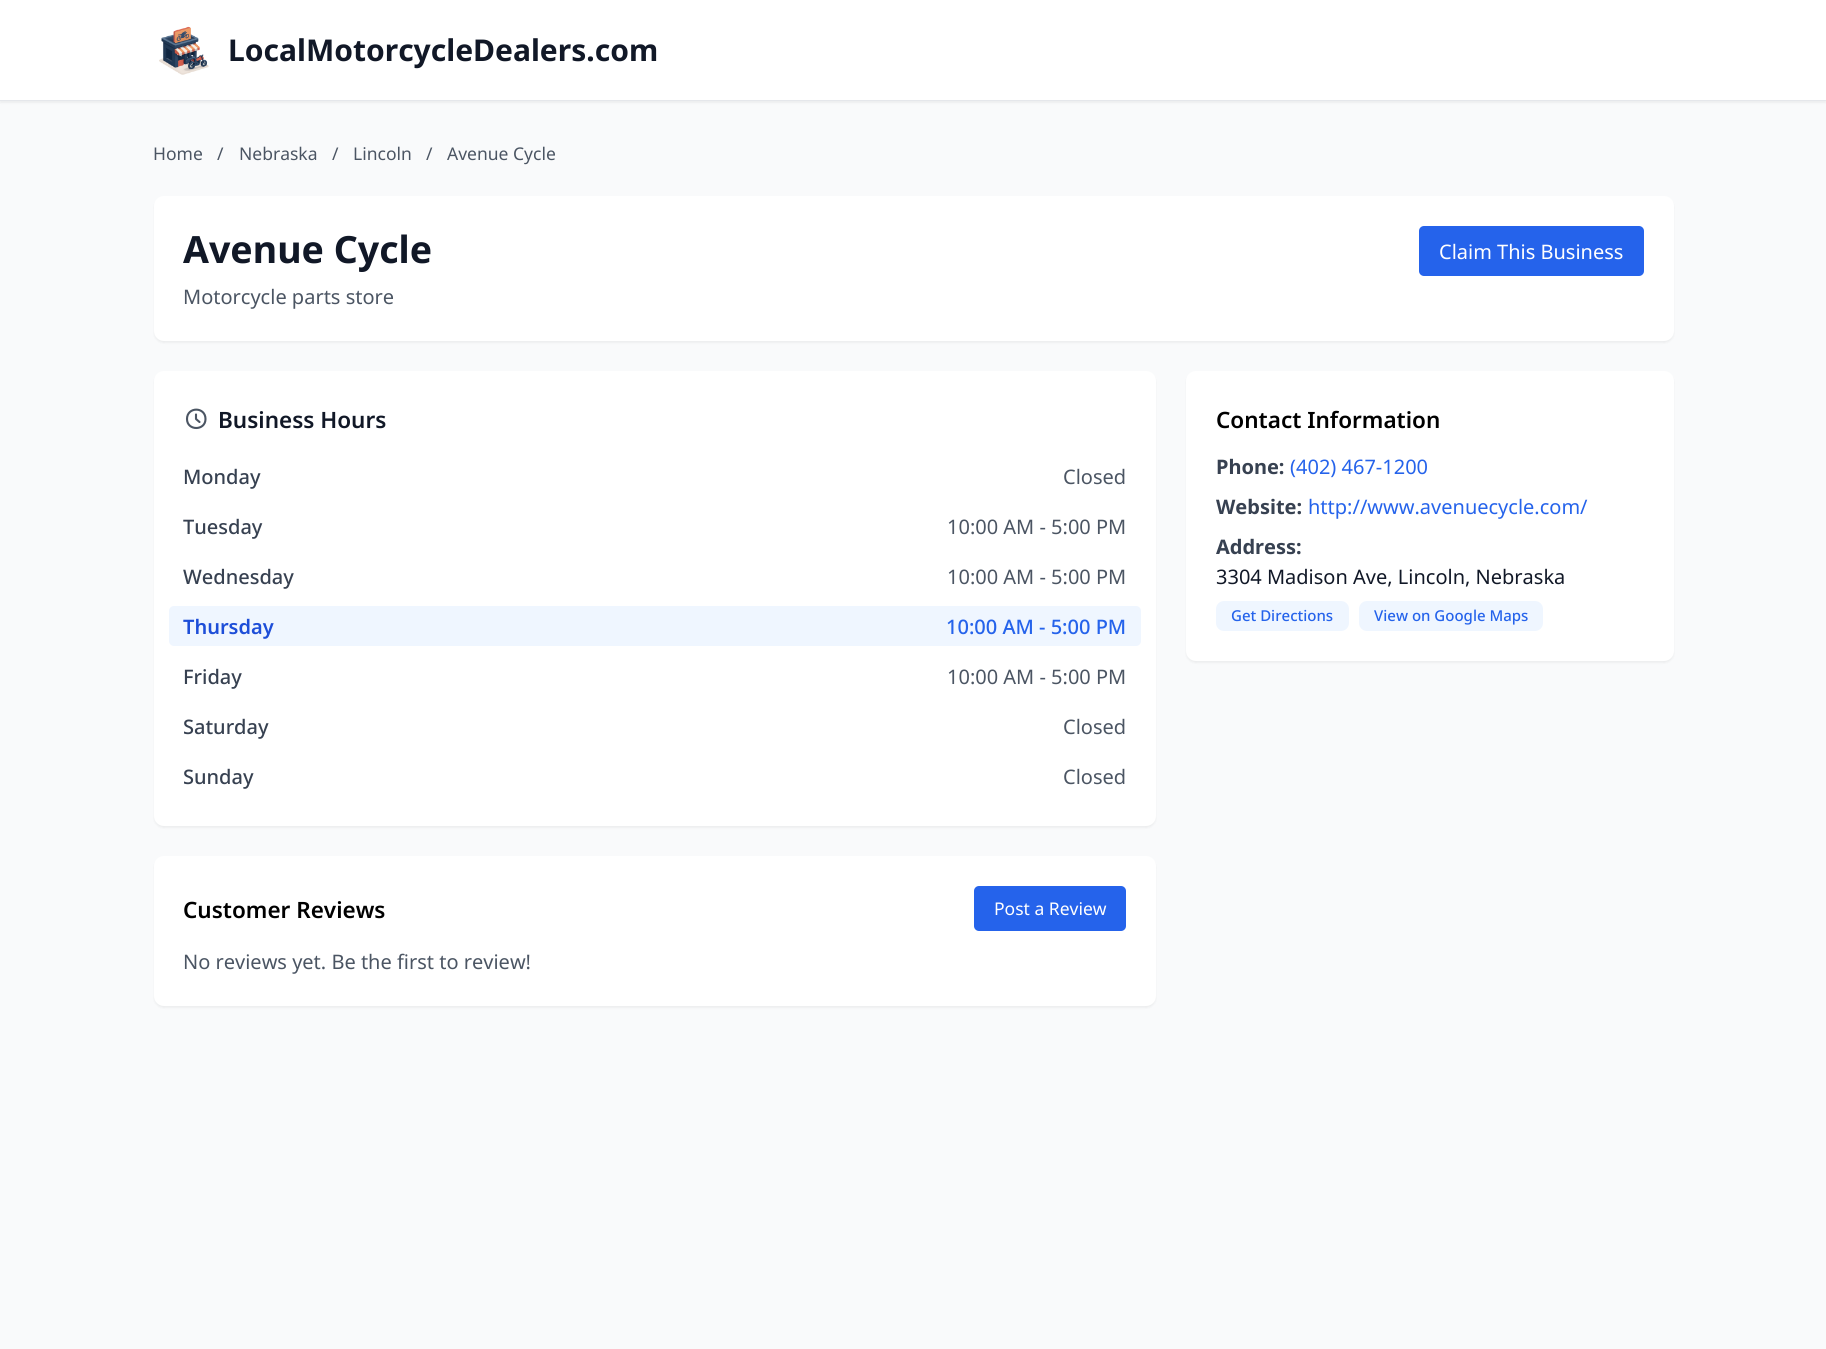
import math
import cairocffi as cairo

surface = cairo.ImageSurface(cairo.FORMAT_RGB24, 1826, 1349)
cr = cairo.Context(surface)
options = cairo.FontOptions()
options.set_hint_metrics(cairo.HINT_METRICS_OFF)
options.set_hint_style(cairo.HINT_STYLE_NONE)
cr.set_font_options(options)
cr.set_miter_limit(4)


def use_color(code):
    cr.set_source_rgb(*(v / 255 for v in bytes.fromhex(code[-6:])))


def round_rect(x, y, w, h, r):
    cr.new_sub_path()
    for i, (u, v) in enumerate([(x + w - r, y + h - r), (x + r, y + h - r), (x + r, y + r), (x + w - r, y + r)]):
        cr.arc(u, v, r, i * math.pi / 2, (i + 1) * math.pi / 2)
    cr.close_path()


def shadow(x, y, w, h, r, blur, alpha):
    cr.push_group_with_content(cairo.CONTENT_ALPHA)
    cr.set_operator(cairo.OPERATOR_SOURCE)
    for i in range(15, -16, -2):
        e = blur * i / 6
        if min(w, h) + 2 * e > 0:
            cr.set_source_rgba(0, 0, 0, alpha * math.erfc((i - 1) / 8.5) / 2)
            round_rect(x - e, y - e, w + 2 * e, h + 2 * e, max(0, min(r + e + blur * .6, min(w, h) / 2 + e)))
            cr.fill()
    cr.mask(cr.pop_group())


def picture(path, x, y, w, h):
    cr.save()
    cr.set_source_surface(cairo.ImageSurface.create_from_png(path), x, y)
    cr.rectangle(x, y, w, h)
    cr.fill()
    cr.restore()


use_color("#f9fafb")
cr.paint()
use_color("#000000")
shadow(0, 1, 1826, 102, 0, 1, 0.05)
use_color("#ffffff")
cr.rectangle(0, 0, 1826, 100)
cr.fill()
use_color("#e5e7eb")
cr.rectangle(0, 100, 1826, 1)
cr.fill()
picture("img1.png", 159, 26, 50, 49)
cr.select_font_face("Noto Sans", cairo.FONT_SLANT_NORMAL, cairo.FONT_WEIGHT_BOLD)
cr.set_font_size(30)
use_color("#111827")
cr.move_to(228, 61)
cr.show_text("LocalMotorcycleDealers.com")
cr.select_font_face("Noto Sans")
cr.set_font_size(17.5)
use_color("#4b5563")
cr.move_to(153, 160)
cr.show_text("Home")
cr.move_to(217, 160)
cr.show_text("/")
cr.move_to(239, 160)
cr.show_text("Nebraska")
cr.move_to(332, 160)
cr.show_text("/")
cr.move_to(353, 160)
cr.show_text("Lincoln")
cr.move_to(426, 160)
cr.show_text("/")
cr.move_to(447, 160)
cr.show_text("Avenue Cycle")
use_color("#000000")
shadow(154, 198, 1520, 145, 10, 1, 0.05)
use_color("#ffffff")
round_rect(154, 196, 1520, 145, 10)
cr.fill()
cr.select_font_face("Noto Sans", cairo.FONT_SLANT_NORMAL, cairo.FONT_WEIGHT_BOLD)
cr.set_font_size(37.5)
use_color("#111827")
cr.move_to(183, 263)
cr.show_text("Avenue Cycle")
cr.select_font_face("Noto Sans")
cr.set_font_size(20)
use_color("#4b5563")
cr.move_to(183, 304)
cr.show_text("Motorcycle parts store")
use_color("#2563eb")
round_rect(1419, 226, 225, 50, 5)
cr.fill()
use_color("#ffffff")
cr.move_to(1439, 259)
cr.show_text("Claim This Business")
use_color("#000000")
shadow(154, 373, 1002, 455, 10, 1, 0.05)
use_color("#ffffff")
round_rect(154, 371, 1002, 455, 10)
cr.fill()
cr.new_path()
cr.move_to(196, 414.5)
cr.line_to(196, 419)
cr.line_to(199.5, 422)
cr.move_to(205.5, 419)
cr.curve_to(205.5, 431, 187, 431, 187, 419)
cr.curve_to(187, 406.5, 205.5, 406.5, 205.5, 419)
cr.close_path()
use_color("#4b5563")
cr.set_line_width(2.1)
cr.set_line_cap(cairo.LINE_CAP_ROUND)
cr.set_line_join(cairo.LINE_JOIN_ROUND)
cr.stroke()
cr.select_font_face("Noto Sans SemiBold")
cr.set_font_size(22.5)
use_color("#111827")
cr.move_to(218, 428)
cr.show_text("Business Hours")
cr.select_font_face("Noto Sans Medium")
cr.set_font_size(20)
use_color("#374151")
cr.move_to(183, 484)
cr.show_text("Monday")
cr.select_font_face("Noto Sans")
use_color("#4b5563")
cr.move_to(1063, 484)
cr.show_text("Closed")
cr.select_font_face("Noto Sans Medium")
use_color("#374151")
cr.move_to(183, 534)
cr.show_text("Tuesday")
cr.select_font_face("Noto Sans")
use_color("#4b5563")
cr.move_to(947, 534)
cr.show_text("10:00 AM - 5:00 PM")
cr.select_font_face("Noto Sans Medium")
use_color("#374151")
cr.move_to(183, 584)
cr.show_text("Wednesday")
cr.select_font_face("Noto Sans")
use_color("#4b5563")
cr.move_to(947, 584)
cr.show_text("10:00 AM - 5:00 PM")
use_color("#eff6ff")
round_rect(169, 606, 972, 40, 5)
cr.fill()
cr.select_font_face("Noto Sans SemiBold")
use_color("#1d4ed8")
cr.move_to(183, 634)
cr.show_text("Thursday")
cr.select_font_face("Noto Sans Medium")
use_color("#2563eb")
cr.move_to(946, 634)
cr.show_text("10:00 AM - 5:00 PM")
use_color("#374151")
cr.move_to(183, 684)
cr.show_text("Friday")
cr.select_font_face("Noto Sans")
use_color("#4b5563")
cr.move_to(947, 684)
cr.show_text("10:00 AM - 5:00 PM")
cr.select_font_face("Noto Sans Medium")
use_color("#374151")
cr.move_to(183, 734)
cr.show_text("Saturday")
cr.select_font_face("Noto Sans")
use_color("#4b5563")
cr.move_to(1063, 734)
cr.show_text("Closed")
cr.select_font_face("Noto Sans Medium")
use_color("#374151")
cr.move_to(183, 784)
cr.show_text("Sunday")
cr.select_font_face("Noto Sans")
use_color("#4b5563")
cr.move_to(1063, 784)
cr.show_text("Closed")
use_color("#000000")
shadow(154, 858, 1002, 150, 10, 1, 0.05)
use_color("#ffffff")
round_rect(154, 856, 1002, 150, 10)
cr.fill()
cr.select_font_face("Noto Sans SemiBold")
cr.set_font_size(22.5)
use_color("#000000")
cr.move_to(183, 918)
cr.show_text("Customer Reviews")
use_color("#2563eb")
round_rect(974, 886, 152, 45, 5)
cr.fill()
cr.select_font_face("Noto Sans")
cr.set_font_size(17.5)
use_color("#ffffff")
cr.move_to(994, 915)
cr.show_text("Post a Review")
cr.set_font_size(20)
use_color("#4b5563")
cr.move_to(183, 969)
cr.show_text("No reviews yet. Be the first to review!")
use_color("#000000")
shadow(1186, 373, 488, 290, 10, 1, 0.05)
use_color("#ffffff")
round_rect(1186, 371, 488, 290, 10)
cr.fill()
cr.select_font_face("Noto Sans SemiBold")
cr.set_font_size(22.5)
use_color("#000000")
cr.move_to(1216, 428)
cr.show_text("Contact Information")
cr.select_font_face("Noto Sans", cairo.FONT_SLANT_NORMAL, cairo.FONT_WEIGHT_BOLD)
cr.set_font_size(20)
use_color("#374151")
cr.move_to(1216, 474)
cr.show_text("Phone:")
cr.select_font_face("Noto Sans")
use_color("#2563eb")
cr.move_to(1290, 474)
cr.show_text("(402) 467-1200")
cr.select_font_face("Noto Sans", cairo.FONT_SLANT_NORMAL, cairo.FONT_WEIGHT_BOLD)
use_color("#374151")
cr.move_to(1216, 514)
cr.show_text("Website:")
cr.select_font_face("Noto Sans")
use_color("#2563eb")
cr.move_to(1308, 514)
cr.show_text("http://www.avenuecycle.com/")
cr.select_font_face("Noto Sans", cairo.FONT_SLANT_NORMAL, cairo.FONT_WEIGHT_BOLD)
use_color("#374151")
cr.move_to(1216, 554)
cr.show_text("Address:")
cr.select_font_face("Noto Sans")
use_color("#111827")
cr.move_to(1216, 584)
cr.show_text("3304 Madison Ave, Lincoln, Nebraska")
use_color("#eff6ff")
round_rect(1216, 601, 133, 30, 8)
cr.fill()
cr.select_font_face("Noto Sans Medium")
cr.set_font_size(15)
use_color("#2563eb")
cr.move_to(1231, 621)
cr.show_text("Get Directions")
use_color("#eff6ff")
round_rect(1359, 601, 184, 30, 8)
cr.fill()
use_color("#2563eb")
cr.move_to(1374, 621)
cr.show_text("View on Google Maps")
surface.write_to_png("result.png")
